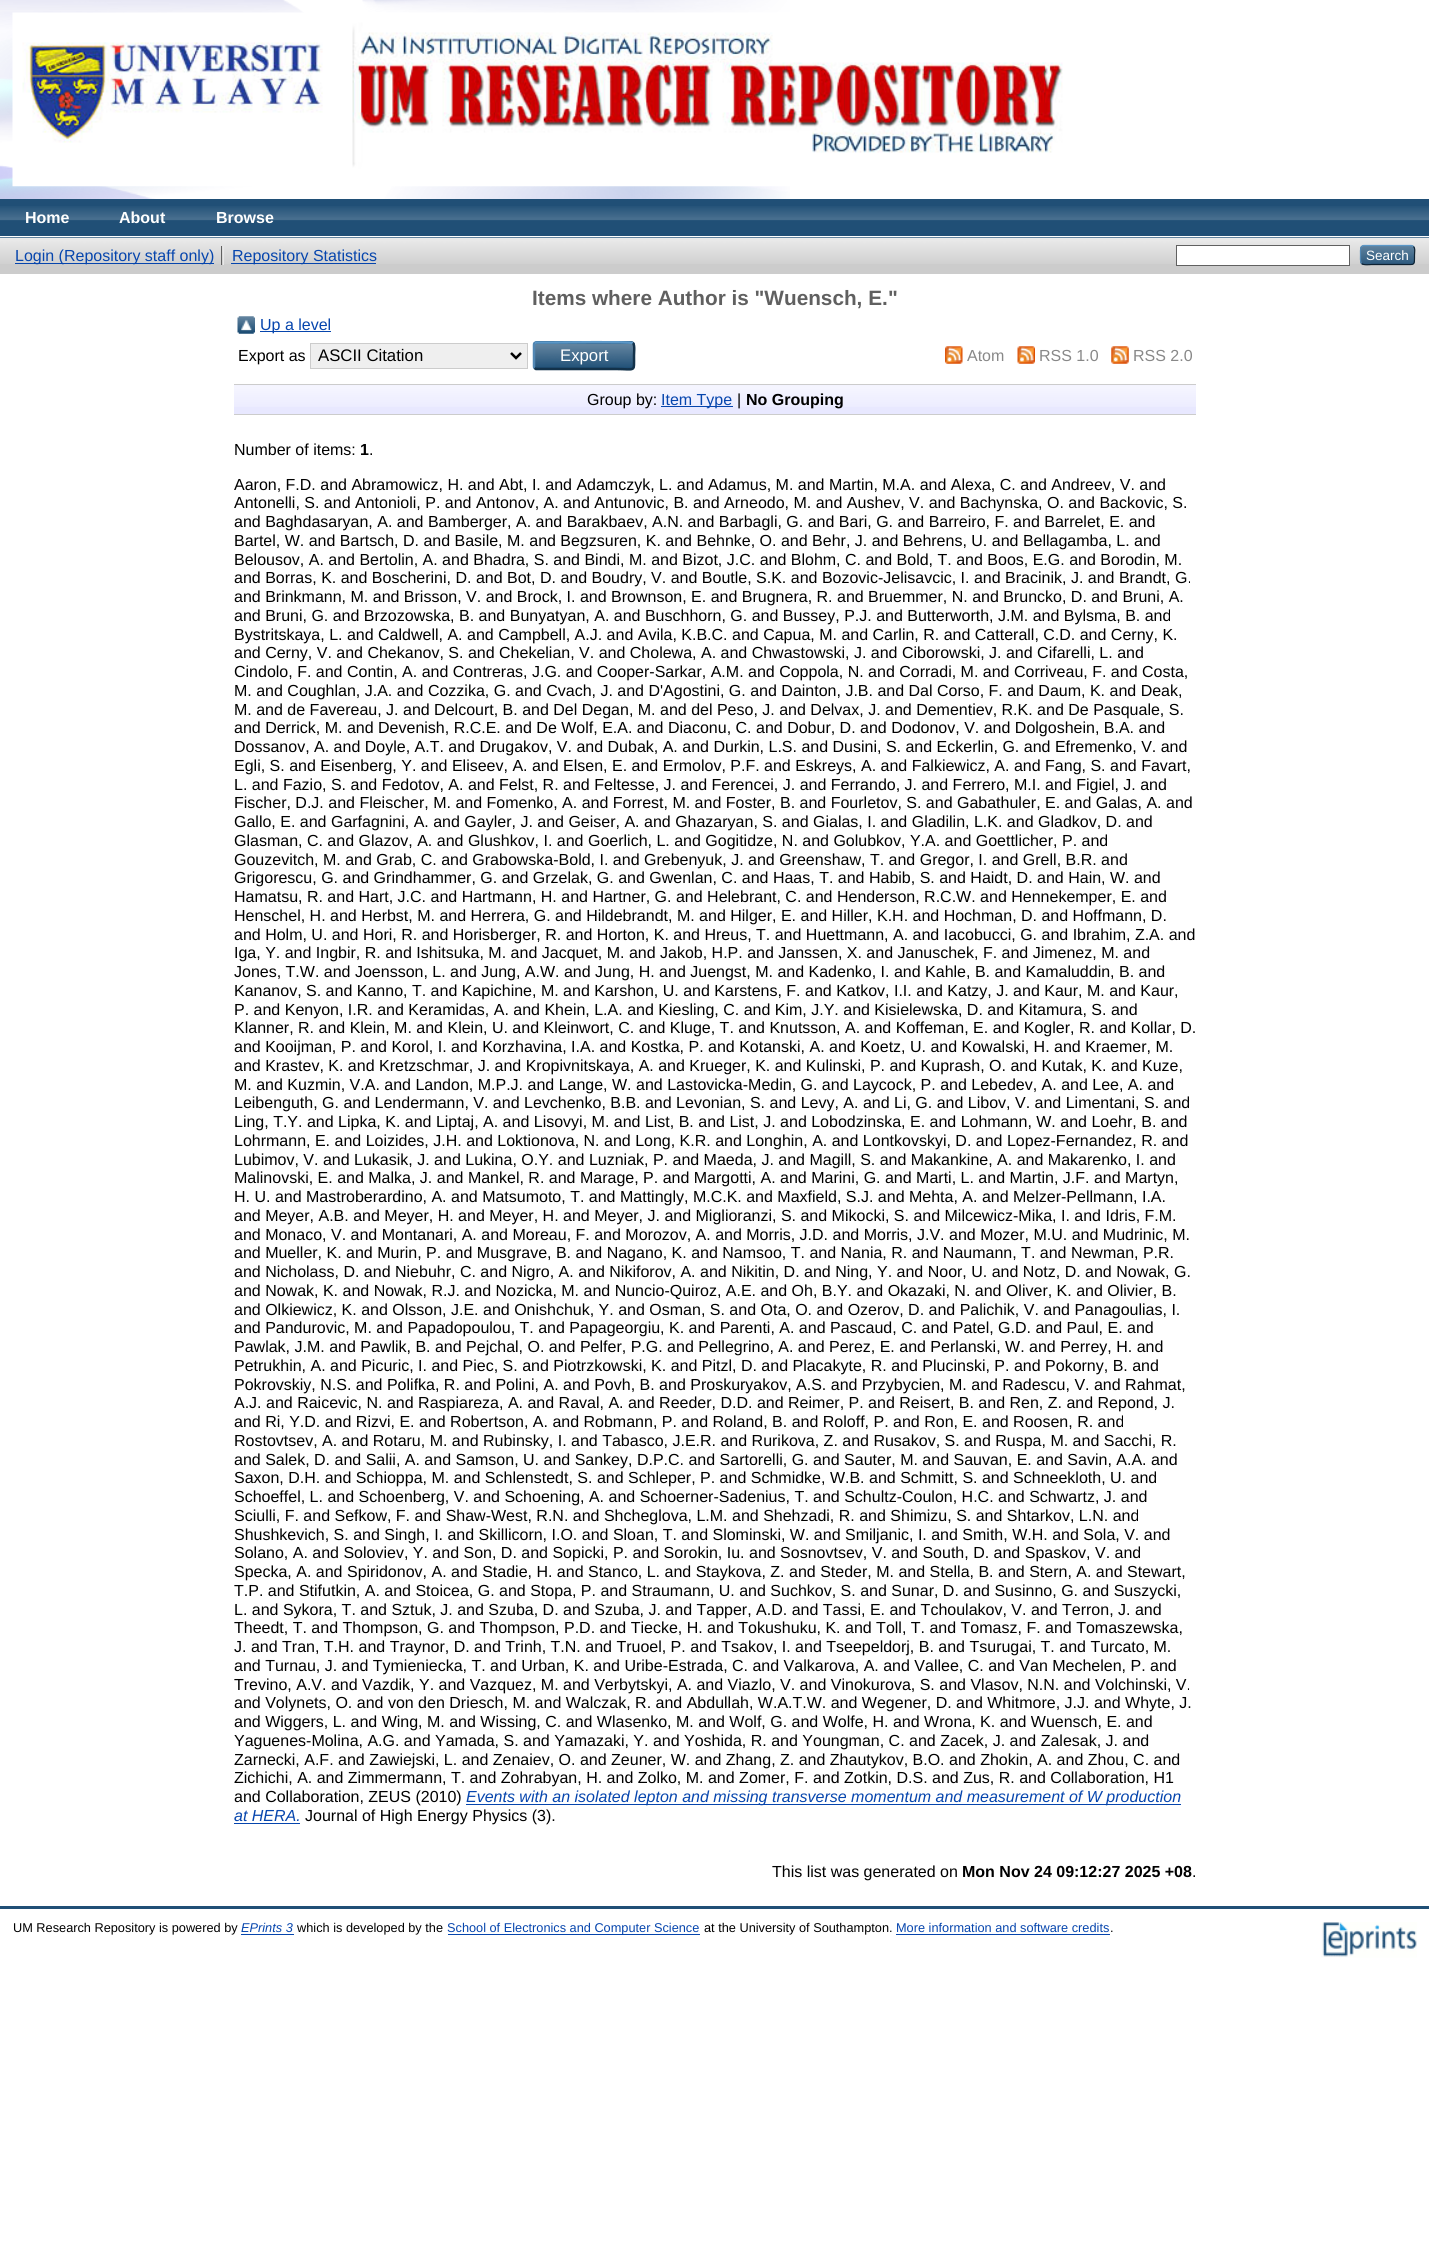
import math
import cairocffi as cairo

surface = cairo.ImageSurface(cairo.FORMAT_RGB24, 1429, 2251)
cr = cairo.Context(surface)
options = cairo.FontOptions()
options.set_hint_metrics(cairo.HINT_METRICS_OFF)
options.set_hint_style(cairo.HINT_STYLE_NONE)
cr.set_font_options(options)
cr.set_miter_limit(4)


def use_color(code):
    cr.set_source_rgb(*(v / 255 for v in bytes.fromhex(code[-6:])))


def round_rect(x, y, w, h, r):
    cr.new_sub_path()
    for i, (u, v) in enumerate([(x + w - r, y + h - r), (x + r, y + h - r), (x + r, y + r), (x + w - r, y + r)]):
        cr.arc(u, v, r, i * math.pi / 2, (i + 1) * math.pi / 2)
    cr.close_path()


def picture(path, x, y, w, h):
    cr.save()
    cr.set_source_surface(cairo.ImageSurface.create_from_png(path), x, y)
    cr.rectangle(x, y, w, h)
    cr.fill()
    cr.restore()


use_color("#ffffff")
cr.paint()
picture("img1.png", 0, 0, 790, 199)
picture("img2.png", 12, 12, 1051, 175)
use_color("#204f76")
cr.rectangle(0, 199, 1429, 39)
cr.fill()
picture("img3.png", 0, 206, 1429, 15)
use_color("#ffffff")
cr.rectangle(0, 236, 1429, 1)
cr.fill()
cr.select_font_face("Liberation Sans", cairo.FONT_SLANT_NORMAL, cairo.FONT_WEIGHT_BOLD)
cr.set_font_size(16)
cr.move_to(25, 223)
cr.show_text("Home")
cr.move_to(119, 223)
cr.show_text("About")
cr.move_to(216, 223)
cr.show_text("Browse")
use_color("#cccccc")
cr.rectangle(0, 238, 1429, 36)
cr.fill()
picture("img4.png", 0, 237, 1429, 27)
use_color("#0645ad")
cr.rectangle(15, 263, 199, 1)
cr.fill()
cr.select_font_face("Liberation Sans")
cr.move_to(15, 261)
cr.show_text("Login (Repository staff only)")
use_color("#606060")
cr.rectangle(221, 246, 1, 19)
cr.fill()
use_color("#0645ad")
cr.rectangle(231, 263, 145, 1)
cr.fill()
cr.move_to(232, 261)
cr.show_text("Repository Statistics")
use_color("#e8e8e8")
cr.rectangle(223, 246, 1, 19)
cr.fill()
use_color("#ffffff")
cr.rectangle(1176.5, 245.5, 173, 20)
cr.fill_preserve()
use_color("#606060")
cr.set_line_width(1)
cr.stroke()
use_color("#1f4f76")
round_rect(1360, 245, 55, 20, 4)
cr.fill()
picture("img5.png", 1360, 245, 55, 20)
cr.new_path()
cr.move_to(1361.5, 246.5)
cr.line_to(1363.5, 245.5)
cr.line_to(1411.5, 245.5)
cr.line_to(1413.5, 246.5)
use_color("#5b97c7")
cr.set_line_width(1.2)
cr.stroke()
cr.new_path()
cr.move_to(1413.5, 246.5)
cr.curve_to(1415.5, 248.5, 1414.5, 252.5, 1414.5, 255)
cr.curve_to(1414.5, 266, 1415, 264.5, 1403.5, 264.5)
cr.line_to(1371.5, 264.5)
cr.curve_to(1371, 264.5, 1363.5, 265.5, 1361.5, 263.5)
use_color("#0d2131")
cr.stroke()
cr.new_path()
cr.move_to(1361.5, 263.5)
cr.curve_to(1360, 261.5, 1360.5, 257, 1360.5, 255)
cr.curve_to(1360.5, 253, 1360, 248.5, 1361.5, 246.5)
use_color("#5287b3")
cr.stroke()
cr.set_font_size(13.5)
use_color("#ffffff")
cr.move_to(1366, 260)
cr.show_text("Search")
cr.select_font_face("Liberation Sans", cairo.FONT_SLANT_NORMAL, cairo.FONT_WEIGHT_BOLD)
cr.set_font_size(20.75)
use_color("#606060")
cr.move_to(532, 305)
cr.show_text("Items where Author is \"Wuensch, E.")
cr.move_to(888, 305)
cr.show_text("\"")
picture("img6.png", 237, 316, 18, 18)
use_color("#0645ad")
cr.rectangle(260, 331, 71, 1)
cr.fill()
cr.select_font_face("Liberation Sans")
cr.set_font_size(16)
cr.move_to(260, 330)
cr.show_text("Up a level")
use_color("#000000")
cr.move_to(238, 361)
cr.show_text("Export as")
use_color("#efefef")
cr.rectangle(310.5, 343.5, 217, 25)
cr.fill_preserve()
use_color("#cccccc")
cr.set_line_width(1)
cr.stroke()
cr.new_path()
cr.move_to(511, 353)
cr.line_to(516, 358)
cr.line_to(521, 353)
use_color("#000000")
cr.set_line_width(2.5)
cr.stroke()
cr.set_font_size(16.75)
cr.move_to(318, 361)
cr.show_text("ASCII Citation")
use_color("#1f4f76")
round_rect(533, 341, 102, 29, 4)
cr.fill()
picture("img7.png", 534, 343, 101, 24)
cr.new_path()
cr.move_to(534.5, 343)
cr.line_to(536, 342.5)
cr.line_to(552, 342.5)
cr.curve_to(560.5, 342.5, 630.5, 341.5, 632.5, 343)
cr.line_to(633, 343)
use_color("#5b97c7")
cr.stroke()
cr.new_path()
cr.move_to(633, 343)
cr.curve_to(635, 345, 634, 353, 634, 355.5)
cr.curve_to(634, 373, 636, 369, 615.5, 369)
cr.line_to(536, 369)
cr.line_to(534.5, 368)
use_color("#13324a")
cr.stroke()
cr.new_path()
cr.move_to(534.5, 368)
cr.curve_to(534, 367.5, 534, 367, 534, 366)
cr.line_to(534, 345)
cr.curve_to(534, 344.5, 534, 343.5, 534.5, 343)
use_color("#5287b3")
cr.stroke()
use_color("#ffffff")
cr.move_to(560, 361)
cr.show_text("Export")
picture("img8.png", 945, 346, 18, 18)
cr.set_font_size(16)
use_color("#888888")
cr.move_to(967, 361)
cr.show_text("Atom")
picture("img9.png", 1017, 346, 18, 18)
cr.move_to(1039, 361)
cr.show_text("RSS 1.0")
picture("img10.png", 1111, 346, 18, 18)
cr.move_to(1133, 361)
cr.show_text("RSS 2.0")
use_color("#e8e8ff")
cr.rectangle(234, 385, 962, 29)
cr.fill()
picture("img11.png", 234, 385, 962, 22)
use_color("#cccccc")
cr.rectangle(234, 384, 962, 1)
cr.fill()
cr.rectangle(234, 414, 962, 1)
cr.fill()
use_color("#000000")
cr.move_to(587, 405)
cr.show_text("Group by:")
use_color("#0645ad")
cr.rectangle(661, 406, 72, 1)
cr.fill()
cr.move_to(661, 405)
cr.show_text("Item Type")
use_color("#000000")
cr.move_to(737, 405)
cr.show_text("|")
cr.select_font_face("Liberation Sans", cairo.FONT_SLANT_NORMAL, cairo.FONT_WEIGHT_BOLD)
cr.move_to(746, 405)
cr.show_text("No Grouping")
cr.select_font_face("Liberation Sans")
cr.move_to(234, 455)
cr.show_text("Number of items:")
cr.select_font_face("Liberation Sans", cairo.FONT_SLANT_NORMAL, cairo.FONT_WEIGHT_BOLD)
cr.move_to(360, 455)
cr.show_text("1")
cr.select_font_face("Liberation Sans")
cr.move_to(369, 455)
cr.show_text(".")
cr.move_to(234, 490)
cr.show_text("Aaron, F.D. and Abramowicz, H. and Abt, I. and Adamczyk, L. and Adamus, M. and Martin, M.A. and Alexa, C. and Andreev, V. and")
cr.move_to(234, 508)
cr.show_text("Antonelli, S. and Antonioli, P. and Antonov, A. and Antunovic, B. and Arneodo, M. and Aushev, V. and Bachynska, O. and Backovic, S.")
cr.move_to(234, 527)
cr.show_text("and Baghdasaryan, A. and Bamberger, A. and Barakbaev, A.N. and Barbagli, G. and Bari, G. and Barreiro, F. and Barrelet, E. and")
cr.move_to(234, 546)
cr.show_text("Bartel, W. and Bartsch, D. and Basile, M. and Begzsuren, K. and Behnke, O. and Behr, J. and Behrens, U. and Bellagamba, L. and")
cr.move_to(234, 565)
cr.show_text("Belousov, A. and Bertolin, A. and Bhadra, S. and Bindi, M. and Bizot, J.C. and Blohm, C. and Bold, T. and Boos, E.G. and Borodin, M.")
cr.move_to(234, 583)
cr.show_text("and Borras, K. and Boscherini, D. and Bot, D. and Boudry, V. and Boutle, S.K. and Bozovic-Jelisavcic, I. and Bracinik, J. and Brandt, G.")
cr.move_to(234, 602)
cr.show_text("and Brinkmann, M. and Brisson, V. and Brock, I. and Brownson, E. and Brugnera, R. and Bruemmer, N. and Bruncko, D. and Bruni, A.")
cr.move_to(234, 621)
cr.show_text("and Bruni, G. and Brzozowska, B. and Bunyatyan, A. and Buschhorn, G. and Bussey, P.J. and Butterworth, J.M. and Bylsma, B. and")
cr.move_to(234, 640)
cr.show_text("Bystritskaya, L. and Caldwell, A. and Campbell, A.J. and Avila, K.B.C. and Capua, M. and Carlin, R. and Catterall, C.D. and Cerny, K.")
cr.move_to(234, 658)
cr.show_text("and Cerny, V. and Chekanov, S. and Chekelian, V. and Cholewa, A. and Chwastowski, J. and Ciborowski, J. and Cifarelli, L. and")
cr.move_to(234, 677)
cr.show_text("Cindolo, F. and Contin, A. and Contreras, J.G. and Cooper-Sarkar, A.M. and Coppola, N. and Corradi, M. and Corriveau, F. and Costa,")
cr.move_to(234, 696)
cr.show_text("M. and Coughlan, J.A. and Cozzika, G. and Cvach, J. and D'Agostini, G. and Dainton, J.B. and Dal Corso, F. and Daum, K. and Deak,")
cr.move_to(234, 715)
cr.show_text("M. and de Favereau, J. and Delcourt, B. and Del Degan, M. and del Peso, J. and Delvax, J. and Dementiev, R.K. and De Pasquale, S.")
cr.move_to(234, 733)
cr.show_text("and Derrick, M. and Devenish, R.C.E. and De Wolf, E.A. and Diaconu, C. and Dobur, D. and Dodonov, V. and Dolgoshein, B.A. and")
cr.move_to(234, 752)
cr.show_text("Dossanov, A. and Doyle, A.T. and Drugakov, V. and Dubak, A. and Durkin, L.S. and Dusini, S. and Eckerlin, G. and Efremenko, V. and")
cr.move_to(234, 771)
cr.show_text("Egli, S. and Eisenberg, Y. and Eliseev, A. and Elsen, E. and Ermolov, P.F. and Eskreys, A. and Falkiewicz, A. and Fang, S. and Favart,")
cr.move_to(234, 790)
cr.show_text("L. and Fazio, S. and Fedotov, A. and Felst, R. and Feltesse, J. and Ferencei, J. and Ferrando, J. and Ferrero, M.I. and Figiel, J. and")
cr.move_to(234, 808)
cr.show_text("Fischer, D.J. and Fleischer, M. and Fomenko, A. and Forrest, M. and Foster, B. and Fourletov, S. and Gabathuler, E. and Galas, A. and")
cr.move_to(234, 827)
cr.show_text("Gallo, E. and Garfagnini, A. and Gayler, J. and Geiser, A. and Ghazaryan, S. and Gialas, I. and Gladilin, L.K. and Gladkov, D. and")
cr.move_to(234, 846)
cr.show_text("Glasman, C. and Glazov, A. and Glushkov, I. and Goerlich, L. and Gogitidze, N. and Golubkov, Y.A. and Goettlicher, P. and")
cr.move_to(234, 865)
cr.show_text("Gouzevitch, M. and Grab, C. and Grabowska-Bold, I. and Grebenyuk, J. and Greenshaw, T. and Gregor, I. and Grell, B.R. and")
cr.move_to(234, 883)
cr.show_text("Grigorescu, G. and Grindhammer, G. and Grzelak, G. and Gwenlan, C. and Haas, T. and Habib, S. and Haidt, D. and Hain, W. and")
cr.move_to(234, 902)
cr.show_text("Hamatsu, R. and Hart, J.C. and Hartmann, H. and Hartner, G. and Helebrant, C. and Henderson, R.C.W. and Hennekemper, E. and")
cr.move_to(234, 921)
cr.show_text("Henschel, H. and Herbst, M. and Herrera, G. and Hildebrandt, M. and Hilger, E. and Hiller, K.H. and Hochman, D. and Hoffmann, D.")
cr.move_to(234, 940)
cr.show_text("and Holm, U. and Hori, R. and Horisberger, R. and Horton, K. and Hreus, T. and Huettmann, A. and Iacobucci, G. and Ibrahim, Z.A. and")
cr.move_to(234, 958)
cr.show_text("Iga, Y. and Ingbir, R. and Ishitsuka, M. and Jacquet, M. and Jakob, H.P. and Janssen, X. and Januschek, F. and Jimenez, M. and")
cr.move_to(234, 977)
cr.show_text("Jones, T.W. and Joensson, L. and Jung, A.W. and Jung, H. and Juengst, M. and Kadenko, I. and Kahle, B. and Kamaluddin, B. and")
cr.move_to(234, 996)
cr.show_text("Kananov, S. and Kanno, T. and Kapichine, M. and Karshon, U. and Karstens, F. and Katkov, I.I. and Katzy, J. and Kaur, M. and Kaur,")
cr.move_to(234, 1015)
cr.show_text("P. and Kenyon, I.R. and Keramidas, A. and Khein, L.A. and Kiesling, C. and Kim, J.Y. and Kisielewska, D. and Kitamura, S. and")
cr.move_to(234, 1033)
cr.show_text("Klanner, R. and Klein, M. and Klein, U. and Kleinwort, C. and Kluge, T. and Knutsson, A. and Koffeman, E. and Kogler, R. and Kollar, D.")
cr.move_to(234, 1052)
cr.show_text("and Kooijman, P. and Korol, I. and Korzhavina, I.A. and Kostka, P. and Kotanski, A. and Koetz, U. and Kowalski, H. and Kraemer, M.")
cr.move_to(234, 1071)
cr.show_text("and Krastev, K. and Kretzschmar, J. and Kropivnitskaya, A. and Krueger, K. and Kulinski, P. and Kuprash, O. and Kutak, K. and Kuze,")
cr.move_to(234, 1090)
cr.show_text("M. and Kuzmin, V.A. and Landon, M.P.J. and Lange, W. and Lastovicka-Medin, G. and Laycock, P. and Lebedev, A. and Lee, A. and")
cr.move_to(234, 1108)
cr.show_text("Leibenguth, G. and Lendermann, V. and Levchenko, B.B. and Levonian, S. and Levy, A. and Li, G. and Libov, V. and Limentani, S. and")
cr.move_to(234, 1127)
cr.show_text("Ling, T.Y. and Lipka, K. and Liptaj, A. and Lisovyi, M. and List, B. and List, J. and Lobodzinska, E. and Lohmann, W. and Loehr, B. and")
cr.move_to(234, 1146)
cr.show_text("Lohrmann, E. and Loizides, J.H. and Loktionova, N. and Long, K.R. and Longhin, A. and Lontkovskyi, D. and Lopez-Fernandez, R. and")
cr.move_to(234, 1165)
cr.show_text("Lubimov, V. and Lukasik, J. and Lukina, O.Y. and Luzniak, P. and Maeda, J. and Magill, S. and Makankine, A. and Makarenko, I. and")
cr.move_to(234, 1183)
cr.show_text("Malinovski, E. and Malka, J. and Mankel, R. and Marage, P. and Margotti, A. and Marini, G. and Marti, L. and Martin, J.F. and Martyn,")
cr.move_to(234, 1202)
cr.show_text("H. U. and Mastroberardino, A. and Matsumoto, T. and Mattingly, M.C.K. and Maxfield, S.J. and Mehta, A. and Melzer-Pellmann, I.A.")
cr.move_to(234, 1221)
cr.show_text("and Meyer, A.B. and Meyer, H. and Meyer, H. and Meyer, J. and Miglioranzi, S. and Mikocki, S. and Milcewicz-Mika, I. and Idris, F.M.")
cr.move_to(234, 1240)
cr.show_text("and Monaco, V. and Montanari, A. and Moreau, F. and Morozov, A. and Morris, J.D. and Morris, J.V. and Mozer, M.U. and Mudrinic, M.")
cr.move_to(234, 1258)
cr.show_text("and Mueller, K. and Murin, P. and Musgrave, B. and Nagano, K. and Namsoo, T. and Nania, R. and Naumann, T. and Newman, P.R.")
cr.move_to(234, 1277)
cr.show_text("and Nicholass, D. and Niebuhr, C. and Nigro, A. and Nikiforov, A. and Nikitin, D. and Ning, Y. and Noor, U. and Notz, D. and Nowak, G.")
cr.move_to(234, 1296)
cr.show_text("and Nowak, K. and Nowak, R.J. and Nozicka, M. and Nuncio-Quiroz, A.E. and Oh, B.Y. and Okazaki, N. and Oliver, K. and Olivier, B.")
cr.move_to(234, 1315)
cr.show_text("and Olkiewicz, K. and Olsson, J.E. and Onishchuk, Y. and Osman, S. and Ota, O. and Ozerov, D. and Palichik, V. and Panagoulias, I.")
cr.move_to(234, 1333)
cr.show_text("and Pandurovic, M. and Papadopoulou, T. and Papageorgiu, K. and Parenti, A. and Pascaud, C. and Patel, G.D. and Paul, E. and")
cr.move_to(234, 1352)
cr.show_text("Pawlak, J.M. and Pawlik, B. and Pejchal, O. and Pelfer, P.G. and Pellegrino, A. and Perez, E. and Perlanski, W. and Perrey, H. and")
cr.move_to(234, 1371)
cr.show_text("Petrukhin, A. and Picuric, I. and Piec, S. and Piotrzkowski, K. and Pitzl, D. and Placakyte, R. and Plucinski, P. and Pokorny, B. and")
cr.move_to(234, 1390)
cr.show_text("Pokrovskiy, N.S. and Polifka, R. and Polini, A. and Povh, B. and Proskuryakov, A.S. and Przybycien, M. and Radescu, V. and Rahmat,")
cr.move_to(234, 1408)
cr.show_text("A.J. and Raicevic, N. and Raspiareza, A. and Raval, A. and Reeder, D.D. and Reimer, P. and Reisert, B. and Ren, Z. and Repond, J.")
cr.move_to(234, 1427)
cr.show_text("and Ri, Y.D. and Rizvi, E. and Robertson, A. and Robmann, P. and Roland, B. and Roloff, P. and Ron, E. and Roosen, R. and")
cr.move_to(234, 1446)
cr.show_text("Rostovtsev, A. and Rotaru, M. and Rubinsky, I. and Tabasco, J.E.R. and Rurikova, Z. and Rusakov, S. and Ruspa, M. and Sacchi, R.")
cr.move_to(234, 1465)
cr.show_text("and Salek, D. and Salii, A. and Samson, U. and Sankey, D.P.C. and Sartorelli, G. and Sauter, M. and Sauvan, E. and Savin, A.A. and")
cr.move_to(234, 1483)
cr.show_text("Saxon, D.H. and Schioppa, M. and Schlenstedt, S. and Schleper, P. and Schmidke, W.B. and Schmitt, S. and Schneekloth, U. and")
cr.move_to(234, 1502)
cr.show_text("Schoeffel, L. and Schoenberg, V. and Schoening, A. and Schoerner-Sadenius, T. and Schultz-Coulon, H.C. and Schwartz, J. and")
cr.move_to(234, 1521)
cr.show_text("Sciulli, F. and Sefkow, F. and Shaw-West, R.N. and Shcheglova, L.M. and Shehzadi, R. and Shimizu, S. and Shtarkov, L.N. and")
cr.move_to(234, 1540)
cr.show_text("Shushkevich, S. and Singh, I. and Skillicorn, I.O. and Sloan, T. and Slominski, W. and Smiljanic, I. and Smith, W.H. and Sola, V. and")
cr.move_to(234, 1558)
cr.show_text("Solano, A. and Soloviev, Y. and Son, D. and Sopicki, P. and Sorokin, Iu. and Sosnovtsev, V. and South, D. and Spaskov, V. and")
cr.move_to(234, 1577)
cr.show_text("Specka, A. and Spiridonov, A. and Stadie, H. and Stanco, L. and Staykova, Z. and Steder, M. and Stella, B. and Stern, A. and Stewart,")
cr.move_to(234, 1596)
cr.show_text("T.P. and Stifutkin, A. and Stoicea, G. and Stopa, P. and Straumann, U. and Suchkov, S. and Sunar, D. and Susinno, G. and Suszycki,")
cr.move_to(234, 1615)
cr.show_text("L. and Sykora, T. and Sztuk, J. and Szuba, D. and Szuba, J. and Tapper, A.D. and Tassi, E. and Tchoulakov, V. and Terron, J. and")
cr.move_to(234, 1633)
cr.show_text("Theedt, T. and Thompson, G. and Thompson, P.D. and Tiecke, H. and Tokushuku, K. and Toll, T. and Tomasz, F. and Tomaszewska,")
cr.move_to(234, 1652)
cr.show_text("J. and Tran, T.H. and Traynor, D. and Trinh, T.N. and Truoel, P. and Tsakov, I. and Tseepeldorj, B. and Tsurugai, T. and Turcato, M.")
cr.move_to(234, 1671)
cr.show_text("and Turnau, J. and Tymieniecka, T. and Urban, K. and Uribe-Estrada, C. and Valkarova, A. and Vallee, C. and Van Mechelen, P. and")
cr.move_to(234, 1690)
cr.show_text("Trevino, A.V. and Vazdik, Y. and Vazquez, M. and Verbytskyi, A. and Viazlo, V. and Vinokurova, S. and Vlasov, N.N. and Volchinski, V.")
cr.move_to(234, 1708)
cr.show_text("and Volynets, O. and von den Driesch, M. and Walczak, R. and Abdullah, W.A.T.W. and Wegener, D. and Whitmore, J.J. and Whyte, J.")
cr.move_to(234, 1727)
cr.show_text("and Wiggers, L. and Wing, M. and Wissing, C. and Wlasenko, M. and Wolf, G. and Wolfe, H. and Wrona, K. and Wuensch, E. and")
cr.move_to(234, 1746)
cr.show_text("Yaguenes-Molina, A.G. and Yamada, S. and Yamazaki, Y. and Yoshida, R. and Youngman, C. and Zacek, J. and Zalesak, J. and")
cr.move_to(234, 1765)
cr.show_text("Zarnecki, A.F. and Zawiejski, L. and Zenaiev, O. and Zeuner, W. and Zhang, Z. and Zhautykov, B.O. and Zhokin, A. and Zhou, C. and")
cr.move_to(234, 1783)
cr.show_text("Zichichi, A. and Zimmermann, T. and Zohrabyan, H. and Zolko, M. and Zomer, F. and Zotkin, D.S. and Zus, R. and Collaboration, H1")
cr.move_to(234, 1802)
cr.show_text("and Collaboration, ZEUS (2010)")
use_color("#0645ad")
cr.rectangle(466, 1804, 715, 1)
cr.fill()
cr.select_font_face("Liberation Sans", cairo.FONT_SLANT_ITALIC)
cr.move_to(466, 1802)
cr.show_text("Events with an isolated lepton and missing transverse momentum and measurement of W production")
cr.move_to(234, 1821)
cr.show_text("at HERA.")
cr.rectangle(234, 1823, 66, 1)
cr.fill()
cr.select_font_face("Liberation Sans")
use_color("#000000")
cr.move_to(305, 1821)
cr.show_text("Journal of High Energy Physics (3).")
cr.move_to(772, 1877)
cr.show_text("This list was generated on")
cr.select_font_face("Liberation Sans", cairo.FONT_SLANT_NORMAL, cairo.FONT_WEIGHT_BOLD)
cr.move_to(962, 1877)
cr.show_text("Mon Nov 24 09:12:27 2025 +08")
cr.select_font_face("Liberation Sans")
cr.move_to(1192, 1877)
cr.show_text(".")
use_color("#204f76")
cr.rectangle(0, 1906, 1429, 3)
cr.fill()
cr.set_font_size(12.75)
use_color("#000000")
cr.move_to(13, 1932)
cr.show_text("UM Research Repository is powered by")
cr.select_font_face("Liberation Sans", cairo.FONT_SLANT_ITALIC)
use_color("#0645ad")
cr.move_to(241, 1932)
cr.show_text("EPrints 3")
cr.rectangle(241, 1934, 53, 1)
cr.fill()
cr.select_font_face("Liberation Sans")
use_color("#000000")
cr.move_to(297, 1932)
cr.show_text("which is developed by the")
use_color("#0645ad")
cr.rectangle(448, 1934, 252, 1)
cr.fill()
cr.move_to(447, 1932)
cr.show_text("School of Electronics and Computer Science")
use_color("#000000")
cr.move_to(704, 1932)
cr.show_text("at the University of Southampton.")
use_color("#0645ad")
cr.move_to(896, 1932)
cr.show_text("More information and software credits")
cr.rectangle(896, 1934, 214, 1)
cr.fill()
use_color("#000000")
cr.move_to(1110, 1932)
cr.show_text(".")
picture("img12.png", 1321, 1922, 96, 36)
surface.write_to_png("result.png")
